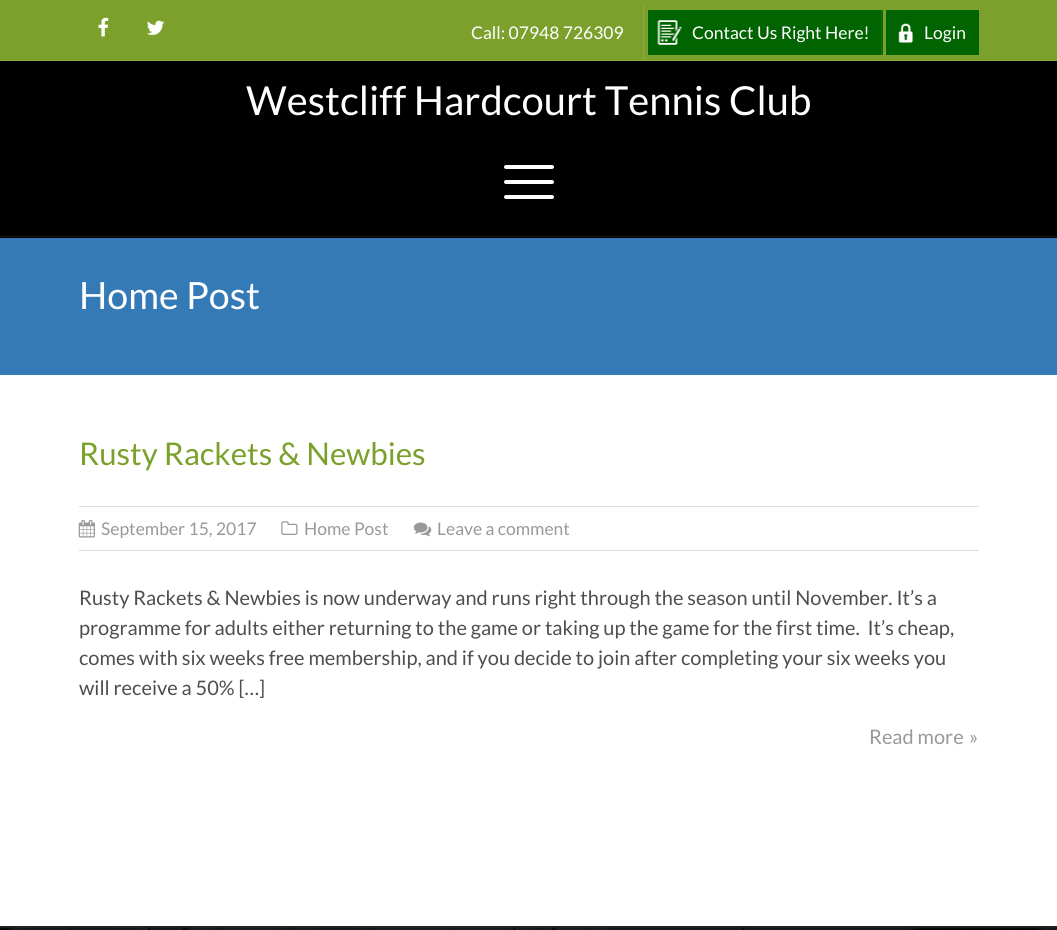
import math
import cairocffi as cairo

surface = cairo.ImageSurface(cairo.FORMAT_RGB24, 1057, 930)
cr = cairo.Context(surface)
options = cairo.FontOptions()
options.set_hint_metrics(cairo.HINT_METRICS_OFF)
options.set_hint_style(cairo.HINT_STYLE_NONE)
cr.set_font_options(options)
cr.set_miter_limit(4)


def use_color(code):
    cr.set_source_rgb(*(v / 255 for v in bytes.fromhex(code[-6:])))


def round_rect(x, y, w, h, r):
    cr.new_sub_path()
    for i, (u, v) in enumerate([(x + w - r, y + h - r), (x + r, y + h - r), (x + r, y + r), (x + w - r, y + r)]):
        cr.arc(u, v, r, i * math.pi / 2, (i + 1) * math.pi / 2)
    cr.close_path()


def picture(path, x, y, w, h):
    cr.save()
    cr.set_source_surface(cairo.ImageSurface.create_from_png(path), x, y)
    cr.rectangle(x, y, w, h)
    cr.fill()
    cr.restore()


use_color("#ffffff")
cr.paint()
use_color("#7ba12c")
cr.rectangle(0, 0, 1057, 60)
cr.fill()
use_color("#88aa41")
cr.rectangle(0, 60, 1057, 1)
cr.fill()
picture("img1.png", 98, 17, 11, 20)
picture("img2.png", 147, 20, 18, 15)
cr.rectangle(643, 5, 1, 55)
cr.fill()
cr.select_font_face("Lato")
cr.set_font_size(17.5)
use_color("#ffffff")
cr.move_to(471, 39)
cr.show_text("Call: 07948 726309")
use_color("#006400")
cr.rectangle(648, 10, 235, 45)
cr.fill()
picture("img3.png", 657, 20, 25, 25)
use_color("#1a741a")
cr.rectangle(881, 10, 1, 45)
cr.fill()
use_color("#ffffff")
cr.move_to(692, 39)
cr.show_text("Contact Us Right Here!")
use_color("#006400")
cr.rectangle(886, 10, 93, 45)
cr.fill()
picture("img4.png", 898, 23, 15, 20)
use_color("#ffffff")
cr.move_to(924, 39)
cr.show_text("Login")
use_color("#000000")
cr.rectangle(0, 61, 1057, 177)
cr.fill()
use_color("#1a1a1a")
cr.rectangle(0, 236, 1057, 1)
cr.fill()
cr.set_font_size(40)
use_color("#ffffff")
cr.move_to(246, 115)
cr.show_text("Westcliff Hardcourt Tennis Club")
round_rect(504, 180, 50, 4, 2)
cr.fill()
round_rect(504, 165, 50, 4, 2)
cr.fill()
round_rect(504, 195, 50, 4, 2)
cr.fill()
use_color("#337ab7")
cr.rectangle(0, 238, 1057, 137)
cr.fill()
cr.set_font_size(37.5)
use_color("#ffffff")
cr.move_to(79, 309)
cr.show_text("Home Post")
cr.set_font_size(31.25)
use_color("#7ba12c")
cr.move_to(79, 465)
cr.show_text("Rusty Rackets & Newbies")
use_color("#dddddd")
cr.rectangle(79, 506, 900, 1)
cr.fill()
cr.rectangle(79, 550, 900, 1)
cr.fill()
picture("img5.png", 78, 520, 17, 18)
cr.set_font_size(17.5)
use_color("#999999")
cr.move_to(101, 535)
cr.show_text("September 15, 2017")
picture("img6.png", 281, 521, 17, 14)
cr.move_to(304, 535)
cr.show_text("Home Post")
picture("img7.png", 413, 522, 19, 15)
cr.move_to(437, 535)
cr.show_text("Leave a comment")
cr.set_font_size(20)
use_color("#4e4e4e")
cr.move_to(79, 605)
cr.show_text("Rusty Rackets & Newbies is now underway and runs right through the season until November. It’s a")
cr.move_to(79, 635)
cr.show_text("programme for adults either returning to the game or taking up the game for the first time.  It’s cheap,")
cr.move_to(79, 665)
cr.show_text("comes with six weeks free membership, and if you decide to join after completing your six weeks you")
cr.move_to(79, 695)
cr.show_text("will receive a 50% […]")
use_color("#999999")
cr.move_to(869, 744)
cr.show_text("Read more")
cr.move_to(969, 744)
cr.show_text("»")
use_color("#202529")
cr.rectangle(0, 926, 1057, 3)
cr.fill()
picture("img8.png", 0, 927, 1057, 3)
surface.write_to_png("result.png")
